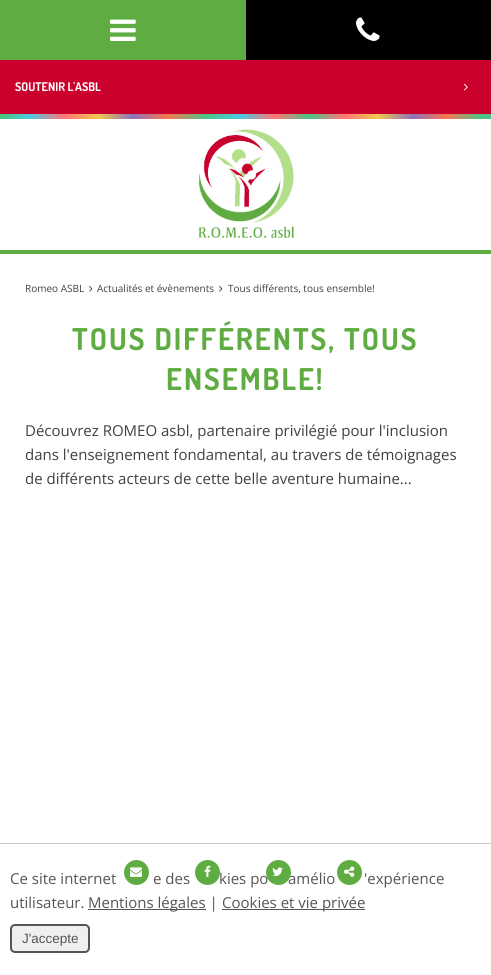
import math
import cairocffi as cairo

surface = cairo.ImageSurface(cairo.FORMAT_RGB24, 491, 975)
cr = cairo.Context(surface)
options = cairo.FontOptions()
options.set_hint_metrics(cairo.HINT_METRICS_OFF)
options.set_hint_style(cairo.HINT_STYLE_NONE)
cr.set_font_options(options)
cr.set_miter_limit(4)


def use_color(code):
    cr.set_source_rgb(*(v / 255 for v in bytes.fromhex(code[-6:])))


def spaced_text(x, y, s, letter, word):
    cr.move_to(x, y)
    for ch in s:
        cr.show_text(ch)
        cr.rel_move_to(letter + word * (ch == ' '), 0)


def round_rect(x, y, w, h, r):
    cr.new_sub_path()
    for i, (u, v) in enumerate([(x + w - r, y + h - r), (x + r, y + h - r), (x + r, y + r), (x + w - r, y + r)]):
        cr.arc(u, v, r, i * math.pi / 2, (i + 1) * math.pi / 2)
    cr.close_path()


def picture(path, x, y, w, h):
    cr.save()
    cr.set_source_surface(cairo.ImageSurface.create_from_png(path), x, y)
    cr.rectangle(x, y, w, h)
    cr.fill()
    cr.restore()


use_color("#ffffff")
cr.paint()
use_color("#5fac42")
cr.rectangle(0, 0, 246, 60)
cr.fill()
picture("img1.png", 110, 19, 26, 22)
use_color("#000000")
cr.rectangle(246, 0, 245, 60)
cr.fill()
picture("img2.png", 356, 17, 24, 24)
use_color("#ca012c")
cr.rectangle(0, 60, 491, 54)
cr.fill()
cr.select_font_face("Dosis", cairo.FONT_SLANT_NORMAL, cairo.FONT_WEIGHT_BOLD)
cr.set_font_size(12)
use_color("#ffffff")
cr.move_to(15, 91)
cr.show_text("SOUTENIR L'ASBL")
picture("img3.png", 464, 83, 4, 8)
use_color("#5fac42")
cr.rectangle(0, 250, 491, 4)
cr.fill()
gradient = cairo.LinearGradient(0, 117, 491, 116)
gradient.add_color_stop_rgba(0, 0.286, 0.773, 0.529, 1)
gradient.add_color_stop_rgba(0.01, 0.286, 0.773, 0.529, 1)
gradient.add_color_stop_rgba(0.06, 0.294, 0.788, 0.886, 1)
gradient.add_color_stop_rgba(0.13, 1, 0.459, 0.459, 1)
gradient.add_color_stop_rgba(0.2, 0.941, 0.784, 0.318, 1)
gradient.add_color_stop_rgba(0.27, 0.553, 0.455, 0.725, 1)
gradient.add_color_stop_rgba(0.34, 0.973, 0.463, 0.31, 1)
gradient.add_color_stop_rgba(0.42, 0.286, 0.773, 0.529, 1)
gradient.add_color_stop_rgba(0.49, 0.294, 0.788, 0.886, 1)
gradient.add_color_stop_rgba(0.56, 1, 0.459, 0.459, 1)
gradient.add_color_stop_rgba(0.63, 0.286, 0.773, 0.529, 1)
gradient.add_color_stop_rgba(0.7, 1, 0.459, 0.459, 1)
gradient.add_color_stop_rgba(0.77, 0.941, 0.784, 0.318, 1)
gradient.add_color_stop_rgba(0.84, 0.553, 0.455, 0.725, 1)
gradient.add_color_stop_rgba(0.91, 0.973, 0.463, 0.31, 1)
gradient.add_color_stop_rgba(0.98, 0.286, 0.773, 0.529, 1)
gradient.add_color_stop_rgba(1, 0.286, 0.773, 0.529, 1)
cr.set_source(gradient)
cr.rectangle(0, 114, 491, 5)
cr.fill()
picture("img4.png", 198, 129, 96, 109)
cr.select_font_face("Open Sans")
cr.set_font_size(10)
use_color("#404040")
cr.move_to(25, 292)
cr.show_text("Romeo ASBL")
picture("img5.png", 89, 286, 4, 6)
cr.move_to(97, 292)
cr.show_text("Actualités et évènements")
picture("img5.png", 219, 286, 4, 6)
cr.move_to(228, 292)
cr.show_text("Tous différents, tous ensemble!")
cr.select_font_face("Dosis", cairo.FONT_SLANT_NORMAL, cairo.FONT_WEIGHT_BOLD)
cr.set_font_size(30)
use_color("#5fac42")
spaced_text(72, 350, "TOUS DIFFÉRENTS, TOUS", 2, 0)
spaced_text(166, 390, "ENSEMBLE!", 2, 0)
cr.select_font_face("Open Sans")
cr.set_font_size(15)
use_color("#404040")
cr.move_to(25, 436)
cr.show_text("Découvrez ROMEO asbl, partenaire privilégié pour l'inclusion")
cr.move_to(25, 460)
cr.show_text("dans l'enseignement fondamental, au travers de témoignages")
cr.move_to(25, 484)
cr.show_text("de différents acteurs de cette belle aventure humaine...")
use_color("#5fac42")
cr.new_path()
cr.arc(136.5, 872.5, 12.5, 0, 2 * math.pi)
cr.fill()
picture("img6.png", 130, 867, 12, 10)
cr.arc(207.5, 872.5, 12.5, 0, 2 * math.pi)
cr.fill()
picture("img7.png", 204, 865, 7, 12)
use_color("#555555")
cr.move_to(219, 884)
cr.show_text("kies po")
cr.move_to(288, 884)
cr.show_text("amélio")
use_color("#5fac42")
cr.new_path()
cr.arc(278.5, 872.5, 12.5, 0, 2 * math.pi)
cr.fill()
picture("img8.png", 272, 867, 11, 9)
cr.arc(349.5, 872.5, 12.5, 0, 2 * math.pi)
cr.fill()
picture("img9.png", 344, 866, 11, 11)
use_color("#cccccc")
cr.rectangle(0, 843, 491, 1)
cr.fill()
use_color("#555555")
cr.move_to(10, 884)
cr.show_text("Ce site internet")
cr.move_to(153, 884)
cr.show_text("e des")
cr.move_to(364, 884)
cr.show_text("'expérience")
cr.move_to(10, 908)
cr.show_text("utilisateur.")
cr.rectangle(88, 909, 118, 1)
cr.fill()
cr.move_to(88, 908)
cr.show_text("Mentions légales |")
cr.rectangle(222, 909, 143, 1)
cr.fill()
cr.move_to(222, 908)
cr.show_text("Cookies et vie privée")
use_color("#efefef")
round_rect(11, 925, 78, 27, 4)
cr.fill_preserve()
use_color("#555555")
cr.stroke()
cr.select_font_face("Liberation Sans")
cr.set_font_size(13.5)
cr.move_to(22, 943)
cr.show_text("J'accepte")
surface.write_to_png("result.png")
